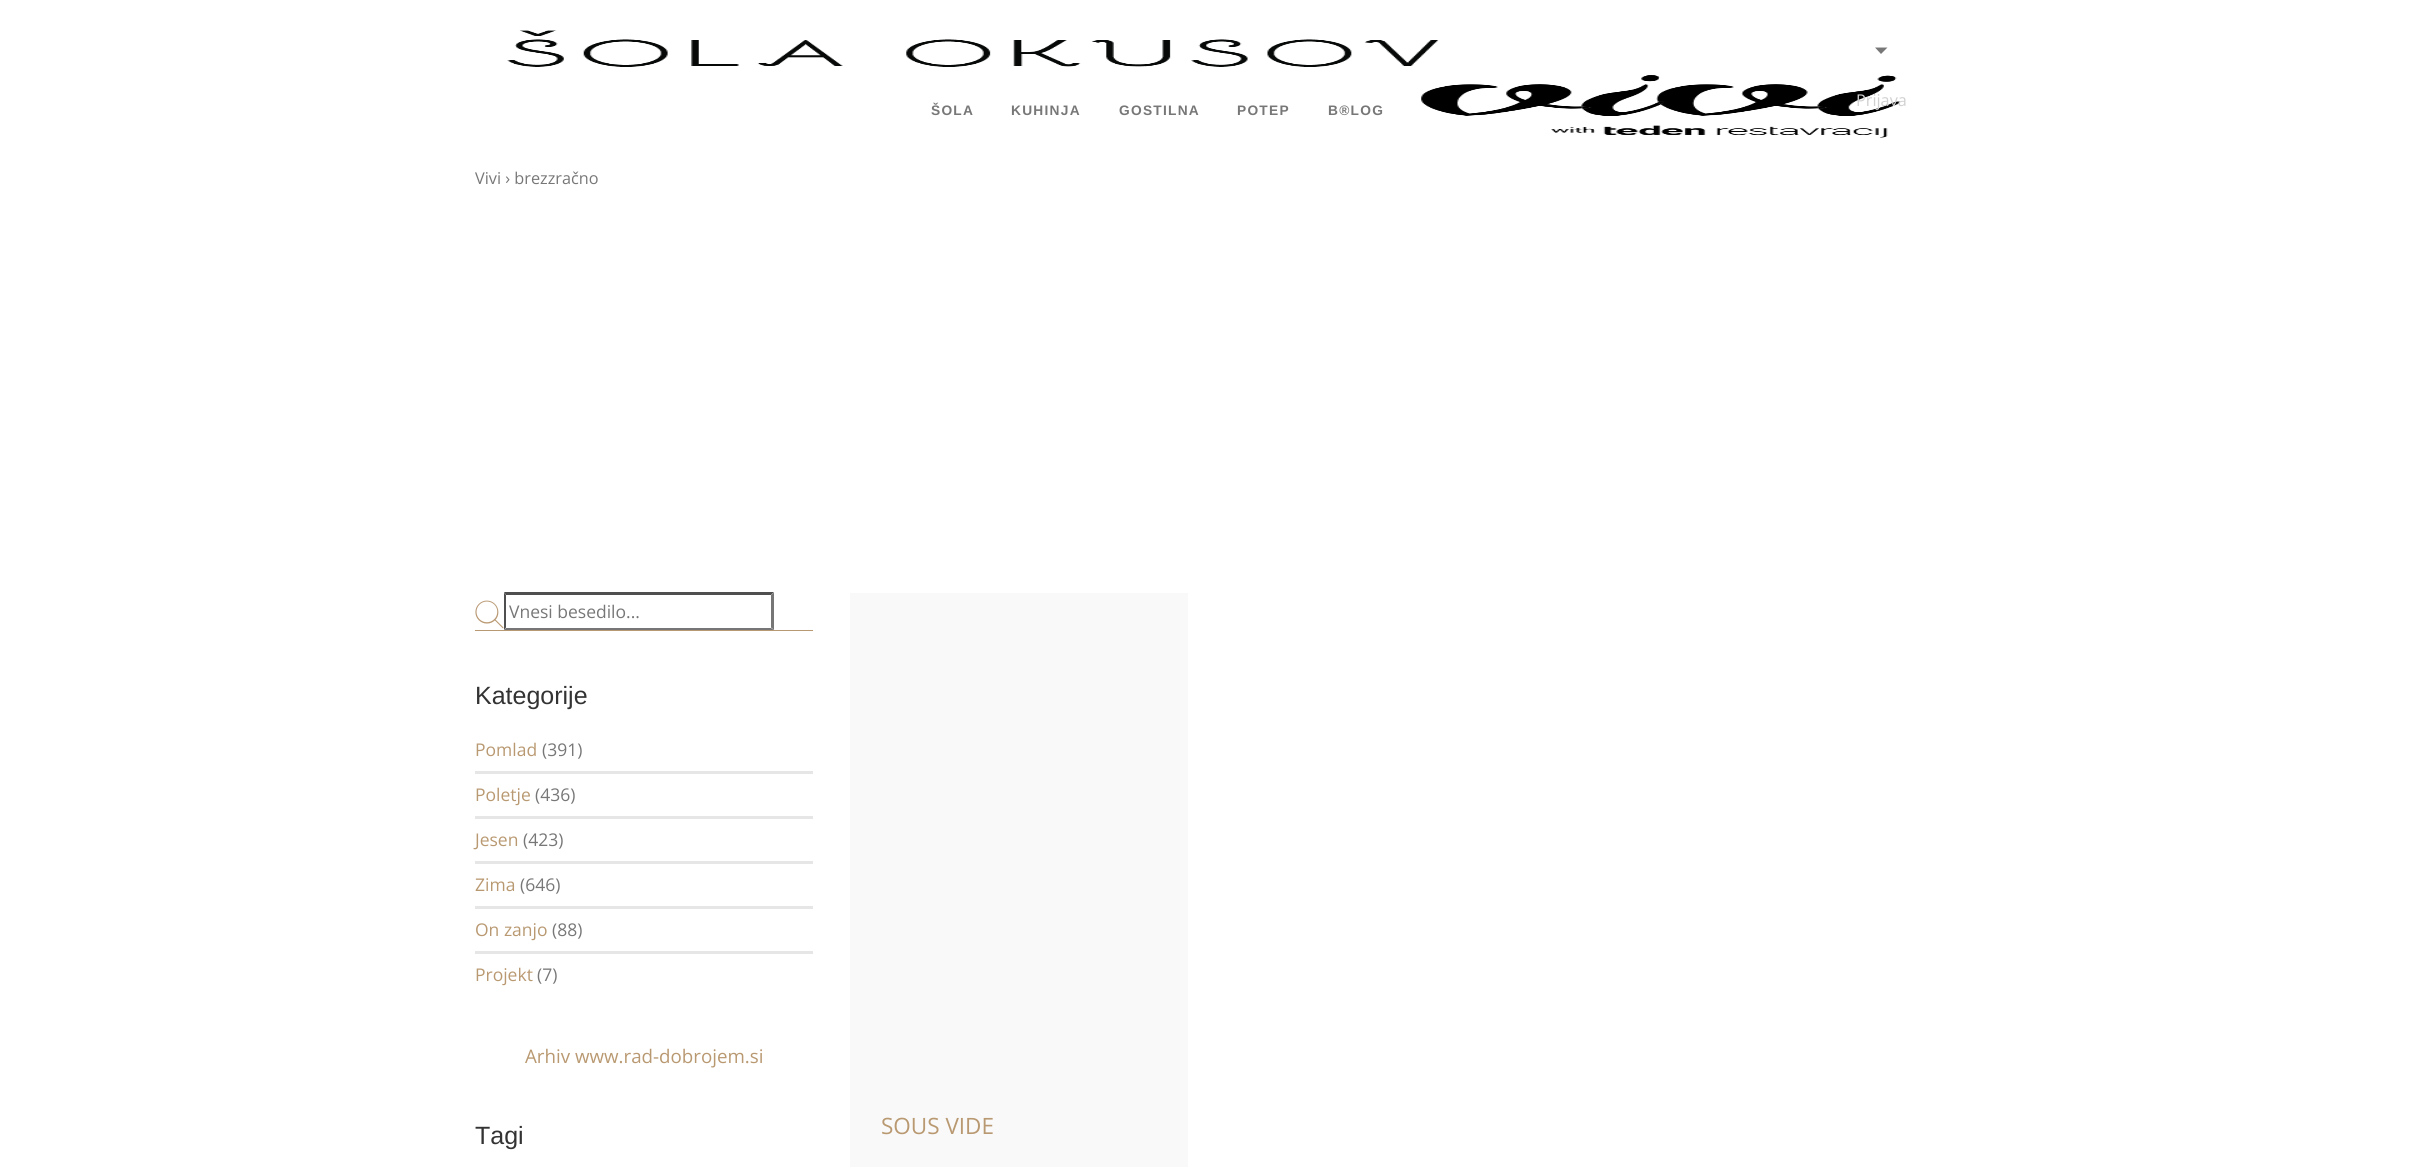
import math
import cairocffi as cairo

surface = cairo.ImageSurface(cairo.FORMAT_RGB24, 2412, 1167)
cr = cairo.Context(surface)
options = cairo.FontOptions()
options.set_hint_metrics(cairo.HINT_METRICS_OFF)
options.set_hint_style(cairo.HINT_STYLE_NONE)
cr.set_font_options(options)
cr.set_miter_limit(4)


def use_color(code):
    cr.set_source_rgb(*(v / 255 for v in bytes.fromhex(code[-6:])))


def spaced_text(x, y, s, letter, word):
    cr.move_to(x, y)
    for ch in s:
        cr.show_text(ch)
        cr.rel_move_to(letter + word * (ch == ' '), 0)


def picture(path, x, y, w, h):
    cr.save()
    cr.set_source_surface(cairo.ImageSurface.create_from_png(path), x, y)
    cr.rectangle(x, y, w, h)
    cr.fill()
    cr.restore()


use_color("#ffffff")
cr.paint()
picture("img1.png", 507, 30, 932, 37)
picture("img2.png", 1421, 75, 479, 63)
cr.select_font_face("Liberation Sans", cairo.FONT_SLANT_NORMAL, cairo.FONT_WEIGHT_BOLD)
cr.set_font_size(13.75)
use_color("#777777")
spaced_text(931, 115, "ŠOLA", 1.25, 0)
spaced_text(1011, 115, "KUHINJA", 1.25, 0)
spaced_text(1119, 115, "GOSTILNA", 1.25, 0)
spaced_text(1237, 115, "POTEP", 1.25, 0)
spaced_text(1328, 115, "B®LOG", 1.25, 0)
cr.new_path()
cr.move_to(1875, 47.5)
cr.line_to(1887.5, 47.5)
cr.line_to(1881, 54)
cr.close_path()
cr.fill()
cr.select_font_face("Open Sans")
cr.set_font_size(16.25)
use_color("#d0d0d0")
cr.move_to(1856, 106)
cr.show_text("Prijava")
use_color("#777777")
cr.move_to(475, 184)
cr.show_text("Vivi › brezzračno")
use_color("#b99971")
cr.rectangle(475, 630, 338, 1)
cr.fill()
picture("img3.png", 475, 600, 29, 29)
use_color("#4f4f4f")
cr.new_path()
cr.move_to(504, 592)
cr.line_to(774, 592)
cr.line_to(771, 595)
cr.line_to(506, 595)
cr.close_path()
cr.fill()
use_color("#767676")
cr.new_path()
cr.move_to(774, 592.5)
cr.line_to(774, 630)
cr.line_to(771, 627.5)
cr.line_to(771, 595)
cr.close_path()
cr.fill()
cr.new_path()
cr.move_to(774, 630)
cr.line_to(504, 630)
cr.line_to(506, 628)
cr.line_to(771, 628)
cr.close_path()
cr.fill()
use_color("#4f4f4f")
cr.new_path()
cr.move_to(504, 630)
cr.line_to(504, 592.5)
cr.line_to(506, 595)
cr.line_to(506, 627.5)
cr.close_path()
cr.fill()
cr.set_font_size(17.5)
use_color("#777777")
cr.move_to(509, 618)
cr.show_text("Vnesi besedilo...")
cr.select_font_face("Liberation Sans")
cr.set_font_size(25)
use_color("#333333")
cr.move_to(475, 704)
cr.show_text("Kategorije")
use_color("#e6e6e6")
cr.rectangle(475, 771, 338, 3)
cr.fill()
cr.select_font_face("Open Sans")
cr.set_font_size(17.5)
use_color("#b99971")
cr.move_to(475, 756)
cr.show_text("Pomlad")
use_color("#777777")
cr.move_to(542, 756)
cr.show_text("(391)")
use_color("#e6e6e6")
cr.rectangle(475, 816, 338, 3)
cr.fill()
use_color("#b99971")
cr.move_to(475, 801)
cr.show_text("Poletje")
use_color("#777777")
cr.move_to(535, 801)
cr.show_text("(436)")
use_color("#e6e6e6")
cr.rectangle(475, 861, 338, 3)
cr.fill()
use_color("#b99971")
cr.move_to(475, 846)
cr.show_text("Jesen")
use_color("#777777")
cr.move_to(523, 846)
cr.show_text("(423)")
use_color("#e6e6e6")
cr.rectangle(475, 906, 338, 3)
cr.fill()
use_color("#b99971")
cr.move_to(475, 891)
cr.show_text("Zima")
use_color("#777777")
cr.move_to(520, 891)
cr.show_text("(646)")
use_color("#e6e6e6")
cr.rectangle(475, 951, 338, 3)
cr.fill()
use_color("#b99971")
cr.move_to(475, 936)
cr.show_text("On zanjo")
use_color("#777777")
cr.move_to(552, 936)
cr.show_text("(88)")
use_color("#b99971")
cr.move_to(475, 981)
cr.show_text("Projekt")
use_color("#777777")
cr.move_to(537, 981)
cr.show_text("(7)")
cr.set_font_size(18.75)
use_color("#b99971")
cr.move_to(525, 1063)
cr.show_text("Arhiv www.rad-dobrojem.si")
cr.select_font_face("Liberation Sans")
cr.set_font_size(25)
use_color("#333333")
cr.move_to(475, 1144)
cr.show_text("Tagi")
use_color("#f9f9f9")
cr.rectangle(850, 593, 338, 574)
cr.fill()
cr.select_font_face("Open Sans")
cr.set_font_size(22.5)
use_color("#b99971")
cr.move_to(881, 1134)
cr.show_text("SOUS VIDE")
surface.write_to_png("result.png")
